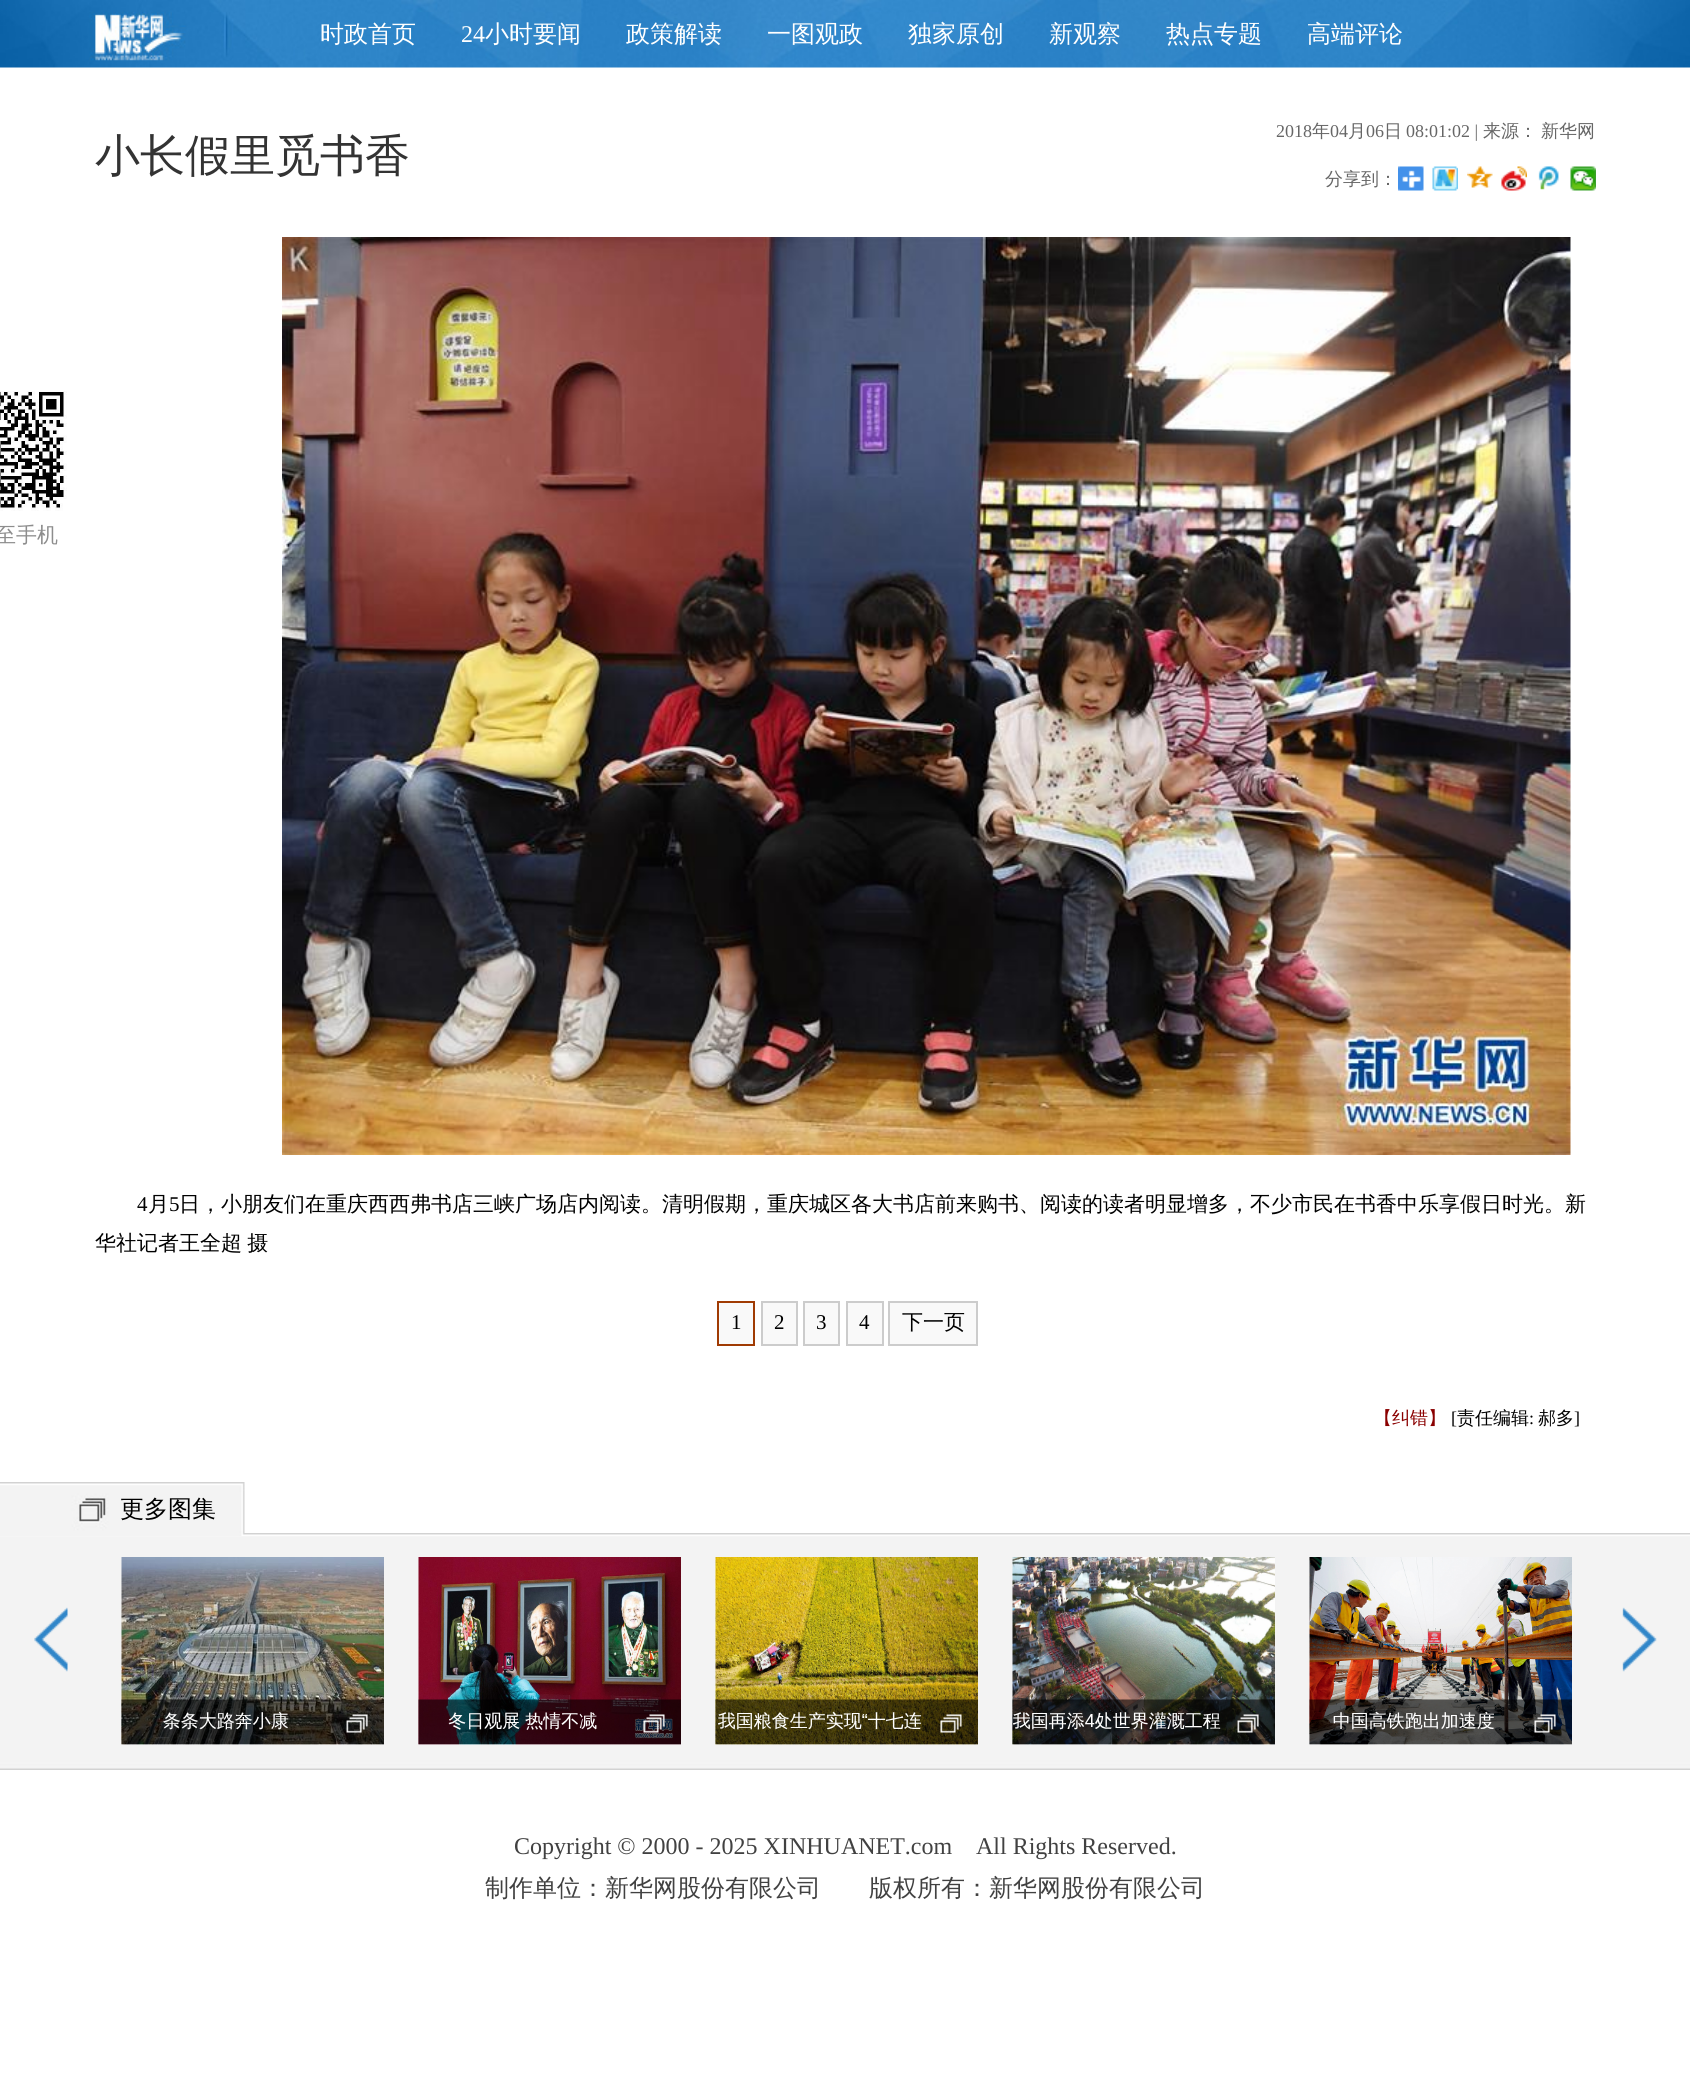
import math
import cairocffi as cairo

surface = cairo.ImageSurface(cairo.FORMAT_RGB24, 1690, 2090)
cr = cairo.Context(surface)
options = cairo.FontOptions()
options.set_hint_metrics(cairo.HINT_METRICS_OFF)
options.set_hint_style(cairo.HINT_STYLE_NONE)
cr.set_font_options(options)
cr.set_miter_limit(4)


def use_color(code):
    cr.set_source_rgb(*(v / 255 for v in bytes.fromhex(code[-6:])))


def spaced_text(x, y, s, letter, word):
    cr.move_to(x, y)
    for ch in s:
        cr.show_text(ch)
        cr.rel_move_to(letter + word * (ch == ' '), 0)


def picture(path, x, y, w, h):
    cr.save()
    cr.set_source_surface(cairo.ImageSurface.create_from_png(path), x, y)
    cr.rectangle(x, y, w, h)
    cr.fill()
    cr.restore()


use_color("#ffffff")
cr.paint()
picture("img1.png", 0, 0, 1690, 68)
cr.select_font_face("WenQuanYi Zen Hei Medium")
cr.set_font_size(24)
use_color("#ffffff")
cr.move_to(320, 42)
cr.show_text("时政首页")
cr.select_font_face("Liberation Serif")
cr.move_to(461, 42)
cr.show_text("24")
cr.select_font_face("WenQuanYi Zen Hei Medium")
cr.move_to(485, 42)
cr.show_text("小时要闻")
cr.move_to(626, 42)
cr.show_text("政策解读")
cr.move_to(767, 42)
cr.show_text("一图观政")
cr.move_to(908, 42)
cr.show_text("独家原创")
cr.move_to(1049, 42)
cr.show_text("新观察")
cr.move_to(1166, 42)
cr.show_text("热点专题")
cr.move_to(1307, 42)
cr.show_text("高端评论")
picture("img2.png", 0, 391, 67, 120)
cr.set_font_size(21)
use_color("#8d8d8d")
cr.move_to(-5, 542)
cr.show_text("至手机")
cr.set_font_size(45)
use_color("#333333")
cr.move_to(95, 171)
cr.show_text("小长假里觅书香")
cr.select_font_face("Liberation Serif")
cr.set_font_size(18)
use_color("#666666")
cr.move_to(1276, 137)
cr.show_text("2018")
cr.select_font_face("WenQuanYi Zen Hei Medium")
cr.move_to(1312, 137)
cr.show_text("年")
cr.select_font_face("Liberation Serif")
cr.move_to(1330, 137)
cr.show_text("04")
cr.select_font_face("WenQuanYi Zen Hei Medium")
cr.move_to(1348, 137)
cr.show_text("月")
cr.select_font_face("Liberation Serif")
cr.move_to(1366, 137)
cr.show_text("06")
cr.select_font_face("WenQuanYi Zen Hei Medium")
cr.move_to(1384, 137)
cr.show_text("日")
cr.select_font_face("Liberation Serif")
cr.move_to(1406, 137)
cr.show_text("08:01:02 |")
cr.select_font_face("WenQuanYi Zen Hei Medium")
cr.move_to(1483, 137)
cr.show_text("来源：")
cr.move_to(1541, 137)
cr.show_text("新华网")
cr.move_to(1325, 185)
cr.show_text("分享到：")
picture("img3.png", 1398, 166, 26, 25)
picture("img4.png", 1432, 166, 26, 25)
picture("img5.png", 1467, 166, 26, 22)
picture("img6.png", 1501, 166, 26, 25)
picture("img7.png", 1538, 166, 21, 24)
picture("img8.png", 1570, 166, 26, 25)
picture("img9.png", 282, 237, 1289, 918)
cr.select_font_face("Liberation Serif")
cr.set_font_size(21)
use_color("#000000")
cr.move_to(137, 1211)
cr.show_text("4")
cr.select_font_face("WenQuanYi Zen Hei Medium")
cr.move_to(148, 1211)
cr.show_text("月")
cr.select_font_face("Liberation Serif")
cr.move_to(169, 1211)
cr.show_text("5")
cr.select_font_face("WenQuanYi Zen Hei Medium")
cr.move_to(179, 1211)
cr.show_text("日，小朋友们在重庆西西弗书店三峡广场店内阅读。清明假期，重庆城区各大书店前来购书、阅读的读者明显增多，不少市民在书香中乐享假日时光。新")
spaced_text(95, 1250, "华社记者王全超 摄", 0, -1)
use_color("#f9f9f9")
cr.rectangle(718, 1302, 36, 43)
cr.fill_preserve()
use_color("#a03b03")
cr.stroke()
cr.select_font_face("Liberation Serif")
use_color("#000000")
cr.move_to(731, 1329)
cr.show_text("1")
use_color("#f9f9f9")
cr.rectangle(762, 1302, 35, 43)
cr.fill_preserve()
use_color("#cccccc")
cr.stroke()
use_color("#000000")
cr.move_to(774, 1329)
cr.show_text("2")
use_color("#f9f9f9")
cr.rectangle(804, 1302, 35, 43)
cr.fill_preserve()
use_color("#cccccc")
cr.stroke()
use_color("#000000")
cr.move_to(816, 1329)
cr.show_text("3")
use_color("#f9f9f9")
cr.rectangle(847, 1302, 36, 43)
cr.fill_preserve()
use_color("#cccccc")
cr.stroke()
use_color("#000000")
cr.move_to(859, 1329)
cr.show_text("4")
use_color("#f9f9f9")
cr.rectangle(889, 1302, 88, 43)
cr.fill_preserve()
use_color("#cccccc")
cr.stroke()
cr.select_font_face("WenQuanYi Zen Hei Medium")
use_color("#000000")
cr.move_to(902, 1329)
cr.show_text("下一页")
cr.set_font_size(18)
use_color("#8a0000")
cr.move_to(1374, 1424)
cr.show_text("【纠错】")
cr.select_font_face("Liberation Serif")
use_color("#000000")
cr.move_to(1451, 1424)
cr.show_text("[")
cr.select_font_face("WenQuanYi Zen Hei Medium")
cr.move_to(1457, 1424)
cr.show_text("责任编辑")
cr.select_font_face("Liberation Serif")
cr.move_to(1529, 1424)
cr.show_text(":")
cr.select_font_face("WenQuanYi Zen Hei Medium")
cr.move_to(1538, 1424)
cr.show_text("郝多")
cr.select_font_face("Liberation Serif")
cr.move_to(1574, 1424)
cr.show_text("]")
picture("img10.png", 0, 1482, 1690, 288)
cr.set_font_size(24)
use_color("#414141")
cr.move_to(514, 1854)
cr.show_text("Copyright © 2000 - 2025 XINHUANET.com")
cr.move_to(976, 1854)
cr.show_text("All Rights Reserved.")
cr.select_font_face("WenQuanYi Zen Hei Medium")
cr.move_to(485, 1896)
cr.show_text("制作单位：新华网股份有限公司　　版权所有：新华网股份有限公司")
surface.write_to_png("result.png")
